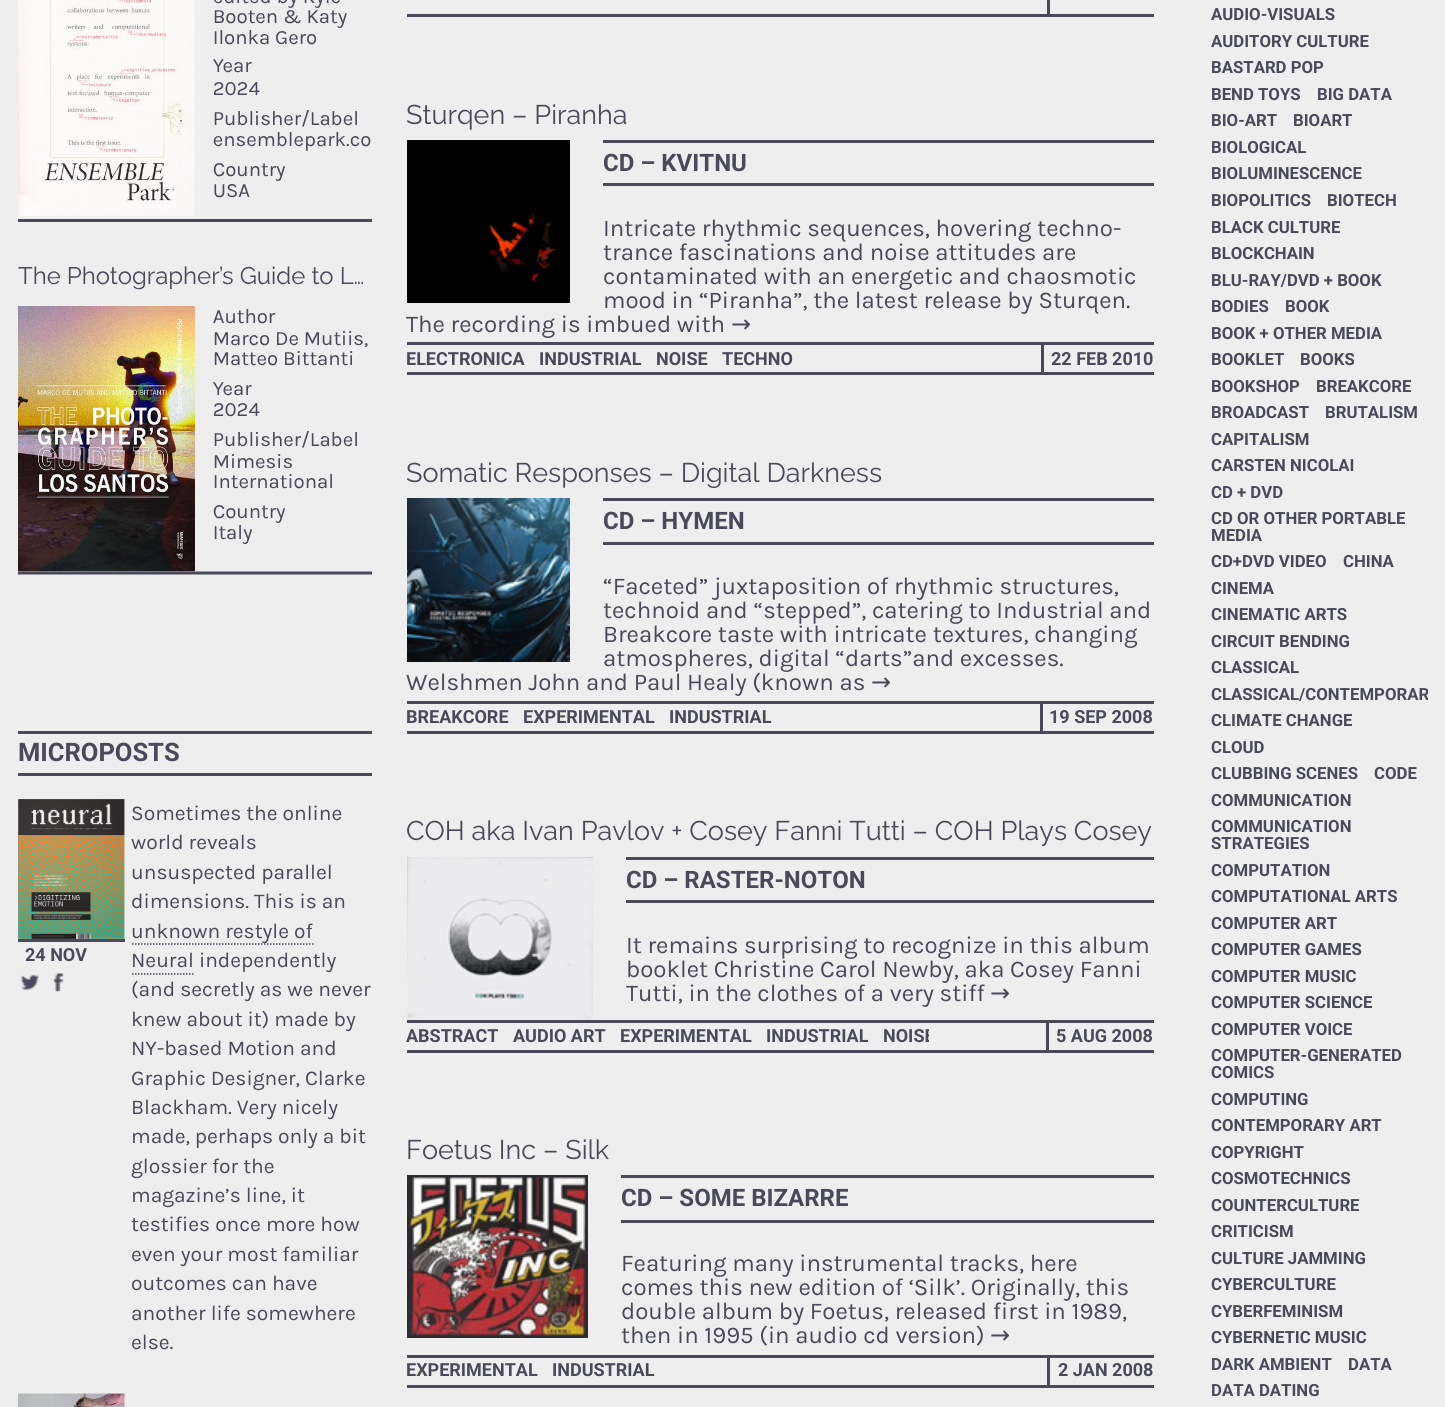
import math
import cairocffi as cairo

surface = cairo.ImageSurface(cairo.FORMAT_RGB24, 1445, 1407)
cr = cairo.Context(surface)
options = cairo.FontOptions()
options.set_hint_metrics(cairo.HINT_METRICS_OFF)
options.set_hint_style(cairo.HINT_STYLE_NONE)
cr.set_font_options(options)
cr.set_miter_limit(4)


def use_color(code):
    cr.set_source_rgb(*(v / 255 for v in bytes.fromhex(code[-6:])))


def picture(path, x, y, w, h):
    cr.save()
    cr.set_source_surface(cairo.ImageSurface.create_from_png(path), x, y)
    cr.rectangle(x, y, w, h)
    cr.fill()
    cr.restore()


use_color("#eeeeee")
cr.paint()
picture("img1.png", 18, 0, 354, 575)
use_color("#494959")
cr.rectangle(18, 731, 354, 3)
cr.fill()
cr.rectangle(18, 773, 354, 3)
cr.fill()
cr.select_font_face("Roboto", cairo.FONT_SLANT_NORMAL, cairo.FONT_WEIGHT_BOLD)
cr.set_font_size(25.5)
cr.move_to(18, 761)
cr.show_text("MICROPOSTS")
picture("img2.png", 18, 799, 107, 140)
cr.rectangle(18, 939, 107, 3)
cr.fill()
cr.set_font_size(18)
cr.move_to(25, 961)
cr.show_text("24 NOV")
picture("img3.png", 21, 974, 18, 16)
picture("img4.png", 53, 973, 11, 19)
cr.select_font_face("Karla")
cr.set_font_size(21)
cr.move_to(131, 820)
cr.show_text("Sometimes the online")
cr.move_to(131, 849)
cr.show_text("world reveals")
cr.move_to(131, 879)
cr.show_text("unsuspected parallel")
cr.move_to(131, 908)
cr.show_text("dimensions. This is an")
cr.new_path()
cr.move_to(132, 944)
cr.line_to(313.5, 944)
cr.set_line_width(1.5)
cr.set_dash([1.5, 1.5])
cr.stroke()
cr.move_to(131, 938)
cr.show_text("unknown restyle of")
cr.move_to(131, 967)
cr.show_text("Neural independently")
cr.new_path()
cr.move_to(132, 974)
cr.line_to(193.5, 974)
cr.stroke()
cr.move_to(131, 996)
cr.show_text("(and secretly as we never")
cr.move_to(131, 1026)
cr.show_text("knew about it) made by")
cr.move_to(131, 1055)
cr.show_text("NY-based Motion and")
cr.move_to(131, 1085)
cr.show_text("Graphic Designer, Clarke")
cr.move_to(131, 1114)
cr.show_text("Blackham. Very nicely")
cr.move_to(131, 1143)
cr.show_text("made, perhaps only a bit")
cr.move_to(131, 1173)
cr.show_text("glossier for the")
cr.move_to(131, 1202)
cr.show_text("magazine’s line, it")
cr.move_to(131, 1231)
cr.show_text("testifies once more how")
cr.move_to(131, 1261)
cr.show_text("even your most familiar")
cr.move_to(131, 1290)
cr.show_text("outcomes can have")
cr.move_to(131, 1320)
cr.show_text("another life somewhere")
cr.move_to(131, 1349)
cr.show_text("else.")
picture("img5.png", 18, 1393, 107, 14)
cr.rectangle(407, 14, 747, 3)
cr.fill()
cr.rectangle(1047, 0, 3, 14)
cr.fill()
cr.select_font_face("Raleway")
cr.set_font_size(27)
cr.move_to(406, 124)
cr.show_text("Sturqen – Piranha")
picture("img6.png", 407, 140, 163, 163)
cr.rectangle(603, 140, 551, 3)
cr.fill()
cr.rectangle(603, 183, 551, 3)
cr.fill()
cr.select_font_face("Roboto", cairo.FONT_SLANT_NORMAL, cairo.FONT_WEIGHT_BOLD)
cr.set_font_size(24)
cr.move_to(603, 171)
cr.show_text("CD – KVITNU")
cr.select_font_face("Karla")
cr.move_to(603, 236)
cr.show_text("Intricate rhythmic sequences, hovering techno-")
cr.move_to(603, 260)
cr.show_text("trance fascinations and noise attitudes are")
cr.move_to(603, 284)
cr.show_text("contaminated with an energetic and chaosmotic")
cr.move_to(603, 308)
cr.show_text("mood in “Piranha”, the latest release by Sturqen.")
cr.move_to(406, 332)
cr.show_text("The recording is imbued with")
cr.select_font_face("DejaVu Sans")
cr.move_to(731, 332)
cr.show_text("→")
cr.rectangle(407, 342, 747, 3)
cr.fill()
cr.rectangle(407, 372, 747, 3)
cr.fill()
cr.select_font_face("Roboto", cairo.FONT_SLANT_NORMAL, cairo.FONT_WEIGHT_BOLD)
cr.set_font_size(18)
cr.move_to(406, 365)
cr.show_text("ELECTRONICA")
cr.move_to(539, 365)
cr.show_text("INDUSTRIAL")
cr.move_to(656, 365)
cr.show_text("NOISE")
cr.move_to(722, 365)
cr.show_text("TECHNO")
cr.rectangle(1041, 345, 3, 27)
cr.fill()
cr.move_to(1051, 365)
cr.show_text("22 FEB 2010")
cr.select_font_face("Raleway")
cr.set_font_size(27)
cr.move_to(406, 482)
cr.show_text("Somatic Responses – Digital Darkness")
picture("img7.png", 407, 498, 163, 164)
cr.rectangle(603, 498, 551, 3)
cr.fill()
cr.rectangle(603, 542, 551, 3)
cr.fill()
cr.select_font_face("Roboto", cairo.FONT_SLANT_NORMAL, cairo.FONT_WEIGHT_BOLD)
cr.set_font_size(24)
cr.move_to(603, 529)
cr.show_text("CD – HYMEN")
cr.select_font_face("Karla")
cr.move_to(603, 594)
cr.show_text("“Faceted” juxtaposition of rhythmic structures,")
cr.move_to(603, 618)
cr.show_text("technoid and “stepped”, catering to Industrial and")
cr.move_to(603, 642)
cr.show_text("Breakcore taste with intricate textures, changing")
cr.move_to(603, 666)
cr.show_text("atmospheres, digital “darts”and excesses.")
cr.move_to(406, 690)
cr.show_text("Welshmen John and Paul Healy (known as")
cr.select_font_face("DejaVu Sans")
cr.move_to(871, 690)
cr.show_text("→")
cr.rectangle(407, 701, 747, 3)
cr.fill()
cr.rectangle(407, 731, 747, 3)
cr.fill()
cr.select_font_face("Roboto", cairo.FONT_SLANT_NORMAL, cairo.FONT_WEIGHT_BOLD)
cr.set_font_size(18)
cr.move_to(406, 723)
cr.show_text("BREAKCORE")
cr.move_to(523, 723)
cr.show_text("EXPERIMENTAL")
cr.move_to(669, 723)
cr.show_text("INDUSTRIAL")
cr.rectangle(1040, 704, 3, 27)
cr.fill()
cr.move_to(1049, 723)
cr.show_text("19 SEP 2008")
cr.select_font_face("Raleway")
cr.set_font_size(27)
cr.move_to(406, 840)
cr.show_text("COH aka Ivan Pavlov + Cosey Fanni Tutti – COH Plays Cosey")
picture("img8.png", 407, 857, 186, 163)
cr.rectangle(626, 857, 528, 3)
cr.fill()
cr.rectangle(626, 900, 528, 3)
cr.fill()
cr.select_font_face("Roboto", cairo.FONT_SLANT_NORMAL, cairo.FONT_WEIGHT_BOLD)
cr.set_font_size(24)
cr.move_to(626, 888)
cr.show_text("CD – RASTER-NOTON")
cr.select_font_face("Karla")
cr.move_to(626, 953)
cr.show_text("It remains surprising to recognize in this album")
cr.move_to(626, 977)
cr.show_text("booklet Christine Carol Newby, aka Cosey Fanni")
cr.move_to(626, 1001)
cr.show_text("Tutti, in the clothes of a very stiff")
cr.select_font_face("DejaVu Sans")
cr.move_to(990, 1001)
cr.show_text("→")
cr.rectangle(407, 1020, 747, 3)
cr.fill()
cr.rectangle(407, 1050, 747, 3)
cr.fill()
cr.select_font_face("Roboto", cairo.FONT_SLANT_NORMAL, cairo.FONT_WEIGHT_BOLD)
cr.set_font_size(18)
cr.move_to(406, 1042)
cr.show_text("ABSTRACT")
cr.move_to(513, 1042)
cr.show_text("AUDIO ART")
cr.move_to(620, 1042)
cr.show_text("EXPERIMENTAL")
cr.move_to(766, 1042)
cr.show_text("INDUSTRIAL")
cr.save()
cr.rectangle(407, 1023, 522, 27)
cr.clip()
cr.move_to(883, 1042)
cr.show_text("NOISE")
cr.restore()
cr.rectangle(1046, 1023, 3, 27)
cr.fill()
cr.move_to(1056, 1042)
cr.show_text("5 AUG 2008")
cr.select_font_face("Raleway")
cr.set_font_size(27)
cr.move_to(406, 1159)
cr.show_text("Foetus Inc – Silk")
picture("img9.png", 407, 1175, 181, 163)
cr.rectangle(621, 1175, 533, 3)
cr.fill()
cr.rectangle(621, 1220, 533, 3)
cr.fill()
cr.select_font_face("Roboto", cairo.FONT_SLANT_NORMAL, cairo.FONT_WEIGHT_BOLD)
cr.set_font_size(24)
cr.move_to(621, 1206)
cr.show_text("CD – SOME BIZARRE")
cr.select_font_face("Karla")
cr.move_to(621, 1271)
cr.show_text("Featuring many instrumental tracks, here")
cr.move_to(621, 1295)
cr.show_text("comes this new edition of ‘Silk’. Originally, this")
cr.move_to(621, 1319)
cr.show_text("double album by Foetus, released first in 1989,")
cr.move_to(621, 1343)
cr.show_text("then in 1995 (in audio cd version)")
cr.select_font_face("DejaVu Sans")
cr.move_to(990, 1343)
cr.show_text("→")
cr.rectangle(407, 1355, 747, 3)
cr.fill()
cr.rectangle(407, 1385, 747, 3)
cr.fill()
cr.select_font_face("Roboto", cairo.FONT_SLANT_NORMAL, cairo.FONT_WEIGHT_BOLD)
cr.set_font_size(18)
cr.move_to(406, 1376)
cr.show_text("EXPERIMENTAL")
cr.move_to(552, 1376)
cr.show_text("INDUSTRIAL")
cr.rectangle(1047, 1358, 3, 27)
cr.fill()
cr.move_to(1058, 1376)
cr.show_text("2 JAN 2008")
cr.set_font_size(16.75)
cr.move_to(1211, 20)
cr.show_text("AUDIO-VISUALS")
cr.move_to(1211, 47)
cr.show_text("AUDITORY CULTURE")
cr.move_to(1211, 73)
cr.show_text("BASTARD POP")
cr.move_to(1211, 100)
cr.show_text("BEND TOYS")
cr.move_to(1317, 100)
cr.show_text("BIG DATA")
cr.move_to(1211, 126)
cr.show_text("BIO-ART")
cr.move_to(1293, 126)
cr.show_text("BIOART")
cr.move_to(1211, 153)
cr.show_text("BIOLOGICAL")
cr.move_to(1211, 179)
cr.show_text("BIOLUMINESCENCE")
cr.move_to(1211, 206)
cr.show_text("BIOPOLITICS")
cr.move_to(1327, 206)
cr.show_text("BIOTECH")
cr.move_to(1211, 233)
cr.show_text("BLACK CULTURE")
cr.move_to(1211, 259)
cr.show_text("BLOCKCHAIN")
cr.move_to(1211, 286)
cr.show_text("BLU-RAY/DVD + BOOK")
cr.move_to(1211, 312)
cr.show_text("BODIES")
cr.move_to(1285, 312)
cr.show_text("BOOK")
cr.move_to(1211, 339)
cr.show_text("BOOK + OTHER MEDIA")
cr.move_to(1211, 365)
cr.show_text("BOOKLET")
cr.move_to(1300, 365)
cr.show_text("BOOKS")
cr.move_to(1211, 392)
cr.show_text("BOOKSHOP")
cr.move_to(1316, 392)
cr.show_text("BREAKCORE")
cr.move_to(1211, 418)
cr.show_text("BROADCAST")
cr.move_to(1325, 418)
cr.show_text("BRUTALISM")
cr.move_to(1211, 445)
cr.show_text("CAPITALISM")
cr.move_to(1211, 471)
cr.show_text("CARSTEN NICOLAI")
cr.move_to(1211, 498)
cr.show_text("CD + DVD")
cr.move_to(1211, 524)
cr.show_text("CD OR OTHER PORTABLE")
cr.move_to(1211, 541)
cr.show_text("MEDIA")
cr.move_to(1211, 567)
cr.show_text("CD+DVD VIDEO")
cr.move_to(1343, 567)
cr.show_text("CHINA")
cr.move_to(1211, 594)
cr.show_text("CINEMA")
cr.move_to(1211, 620)
cr.show_text("CINEMATIC ARTS")
cr.move_to(1211, 647)
cr.show_text("CIRCUIT BENDING")
cr.move_to(1211, 673)
cr.show_text("CLASSICAL")
cr.save()
cr.rectangle(1203, 0, 225, 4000)
cr.clip()
cr.move_to(1211, 700)
cr.show_text("CLASSICAL/CONTEMPORAR")
cr.restore()
cr.move_to(1211, 726)
cr.show_text("CLIMATE CHANGE")
cr.move_to(1211, 753)
cr.show_text("CLOUD")
cr.move_to(1211, 779)
cr.show_text("CLUBBING SCENES")
cr.move_to(1374, 779)
cr.show_text("CODE")
cr.move_to(1211, 806)
cr.show_text("COMMUNICATION")
cr.move_to(1211, 832)
cr.show_text("COMMUNICATION")
cr.move_to(1211, 849)
cr.show_text("STRATEGIES")
cr.move_to(1211, 876)
cr.show_text("COMPUTATION")
cr.move_to(1211, 902)
cr.show_text("COMPUTATIONAL ARTS")
cr.move_to(1211, 929)
cr.show_text("COMPUTER ART")
cr.move_to(1211, 955)
cr.show_text("COMPUTER GAMES")
cr.move_to(1211, 982)
cr.show_text("COMPUTER MUSIC")
cr.move_to(1211, 1008)
cr.show_text("COMPUTER SCIENCE")
cr.move_to(1211, 1035)
cr.show_text("COMPUTER VOICE")
cr.move_to(1211, 1061)
cr.show_text("COMPUTER-GENERATED")
cr.move_to(1211, 1078)
cr.show_text("COMICS")
cr.move_to(1211, 1105)
cr.show_text("COMPUTING")
cr.move_to(1211, 1131)
cr.show_text("CONTEMPORARY ART")
cr.move_to(1211, 1158)
cr.show_text("COPYRIGHT")
cr.move_to(1211, 1184)
cr.show_text("COSMOTECHNICS")
cr.move_to(1211, 1211)
cr.show_text("COUNTERCULTURE")
cr.move_to(1211, 1237)
cr.show_text("CRITICISM")
cr.move_to(1211, 1264)
cr.show_text("CULTURE JAMMING")
cr.move_to(1211, 1290)
cr.show_text("CYBERCULTURE")
cr.move_to(1211, 1317)
cr.show_text("CYBERFEMINISM")
cr.move_to(1211, 1343)
cr.show_text("CYBERNETIC MUSIC")
cr.move_to(1211, 1370)
cr.show_text("DARK AMBIENT")
cr.move_to(1348, 1370)
cr.show_text("DATA")
cr.move_to(1211, 1396)
cr.show_text("DATA DATING")
surface.write_to_png("result.png")
